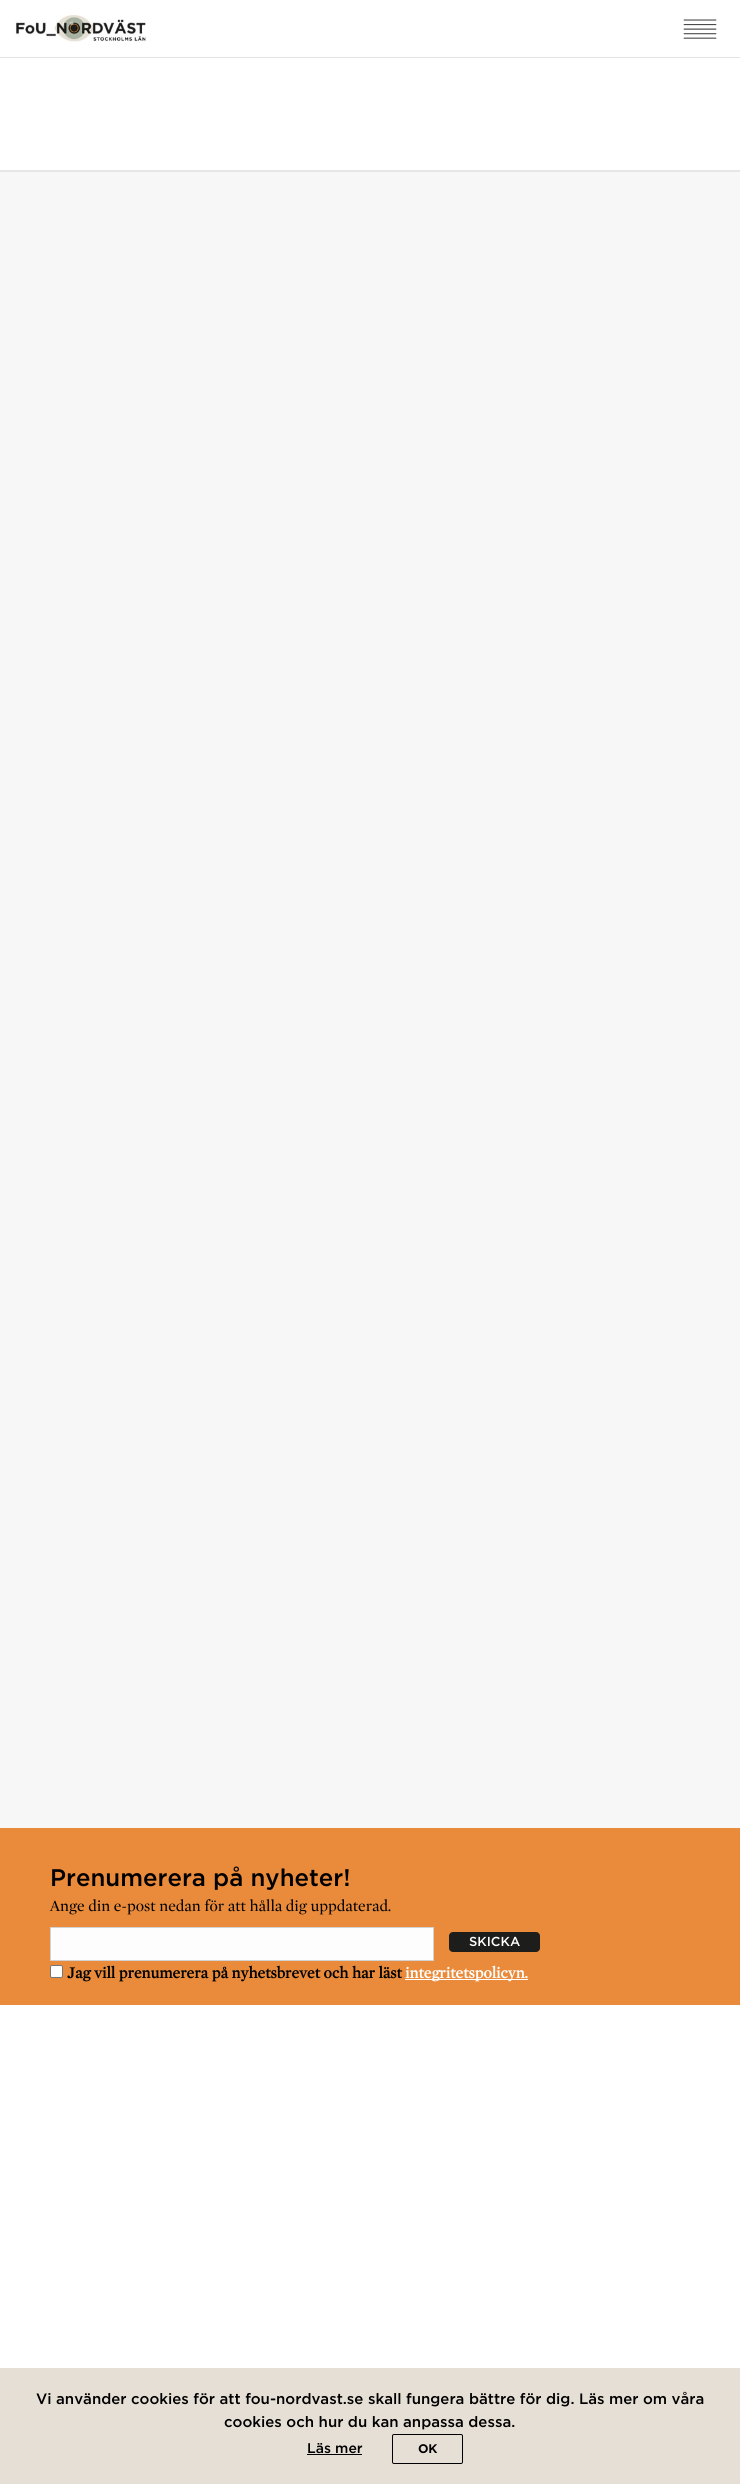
import math
import cairocffi as cairo

surface = cairo.ImageSurface(cairo.FORMAT_RGB24, 740, 2484)
cr = cairo.Context(surface)
options = cairo.FontOptions()
options.set_hint_metrics(cairo.HINT_METRICS_OFF)
options.set_hint_style(cairo.HINT_STYLE_NONE)
cr.set_font_options(options)
cr.set_miter_limit(4)


def use_color(code):
    cr.set_source_rgb(*(v / 255 for v in bytes.fromhex(code[-6:])))


def round_rect(x, y, w, h, r):
    cr.new_sub_path()
    for i, (u, v) in enumerate([(x + w - r, y + h - r), (x + r, y + h - r), (x + r, y + r), (x + w - r, y + r)]):
        cr.arc(u, v, r, i * math.pi / 2, (i + 1) * math.pi / 2)
    cr.close_path()


def picture(path, x, y, w, h):
    cr.save()
    cr.set_source_surface(cairo.ImageSurface.create_from_png(path), x, y)
    cr.rectangle(x, y, w, h)
    cr.fill()
    cr.restore()


use_color("#ffffff")
cr.paint()
use_color("#e4e4e4")
cr.rectangle(0, 57, 740, 1)
cr.fill()
picture("img1.png", 15, 15, 131, 27)
picture("img2.png", 683, 19, 34, 20)
use_color("#e6e6e6")
cr.rectangle(0, 170, 740, 2)
cr.fill()
use_color("#f7f7f7")
cr.rectangle(0, 172, 740, 1656)
cr.fill()
use_color("#ea8b3b")
cr.rectangle(0, 1828, 740, 177)
cr.fill()
cr.select_font_face("Gotham Medium")
cr.set_font_size(24)
use_color("#000000")
cr.move_to(50, 1886)
cr.show_text("Prenumerera på nyheter!")
cr.select_font_face("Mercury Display")
cr.set_font_size(16)
cr.move_to(50, 1911)
cr.show_text("Ange din e-post nedan för att hålla dig uppdaterad.")
use_color("#fdfdfd")
cr.rectangle(50.5, 1927.5, 383, 33)
cr.fill_preserve()
use_color("#d2d2d2")
cr.set_line_width(1)
cr.stroke()
use_color("#1d1d1b")
round_rect(449, 1932, 91, 20, 4)
cr.fill()
cr.select_font_face("Gotham Medium")
cr.set_font_size(13)
use_color("#ffffff")
cr.move_to(469, 1946)
cr.show_text("SKICKA")
round_rect(50.5, 1965.5, 12, 12, 1.5)
cr.fill_preserve()
use_color("#767676")
cr.stroke()
cr.select_font_face("Mercury Display", cairo.FONT_SLANT_NORMAL, cairo.FONT_WEIGHT_BOLD)
cr.set_font_size(16)
use_color("#000000")
cr.move_to(67, 1978)
cr.show_text("Jag vill prenumerera på nyhetsbrevet och har läst")
use_color("#ffffff")
cr.rectangle(405, 1979, 123, 1)
cr.fill()
cr.move_to(405, 1978)
cr.show_text("integritetspolicyn.")
use_color("#e6dfd5")
cr.rectangle(0, 2368, 740, 116)
cr.fill()
cr.select_font_face("Gotham Medium")
cr.set_font_size(15)
use_color("#000000")
cr.move_to(36, 2404)
cr.show_text("Vi använder cookies för att fou-nordvast.se skall fungera bättre för dig. Läs mer om våra")
cr.move_to(224, 2427)
cr.show_text("cookies och hur du kan anpassa dessa.")
cr.set_font_size(14)
cr.move_to(307, 2453)
cr.show_text("Läs mer")
cr.rectangle(307, 2454, 55, 1)
cr.fill()
round_rect(392.5, 2434.5, 70, 29, 1.5)
cr.stroke()
cr.select_font_face("Gotham", cairo.FONT_SLANT_NORMAL, cairo.FONT_WEIGHT_BOLD)
cr.set_font_size(12)
cr.move_to(418, 2453)
cr.show_text("OK")
surface.write_to_png("result.png")
